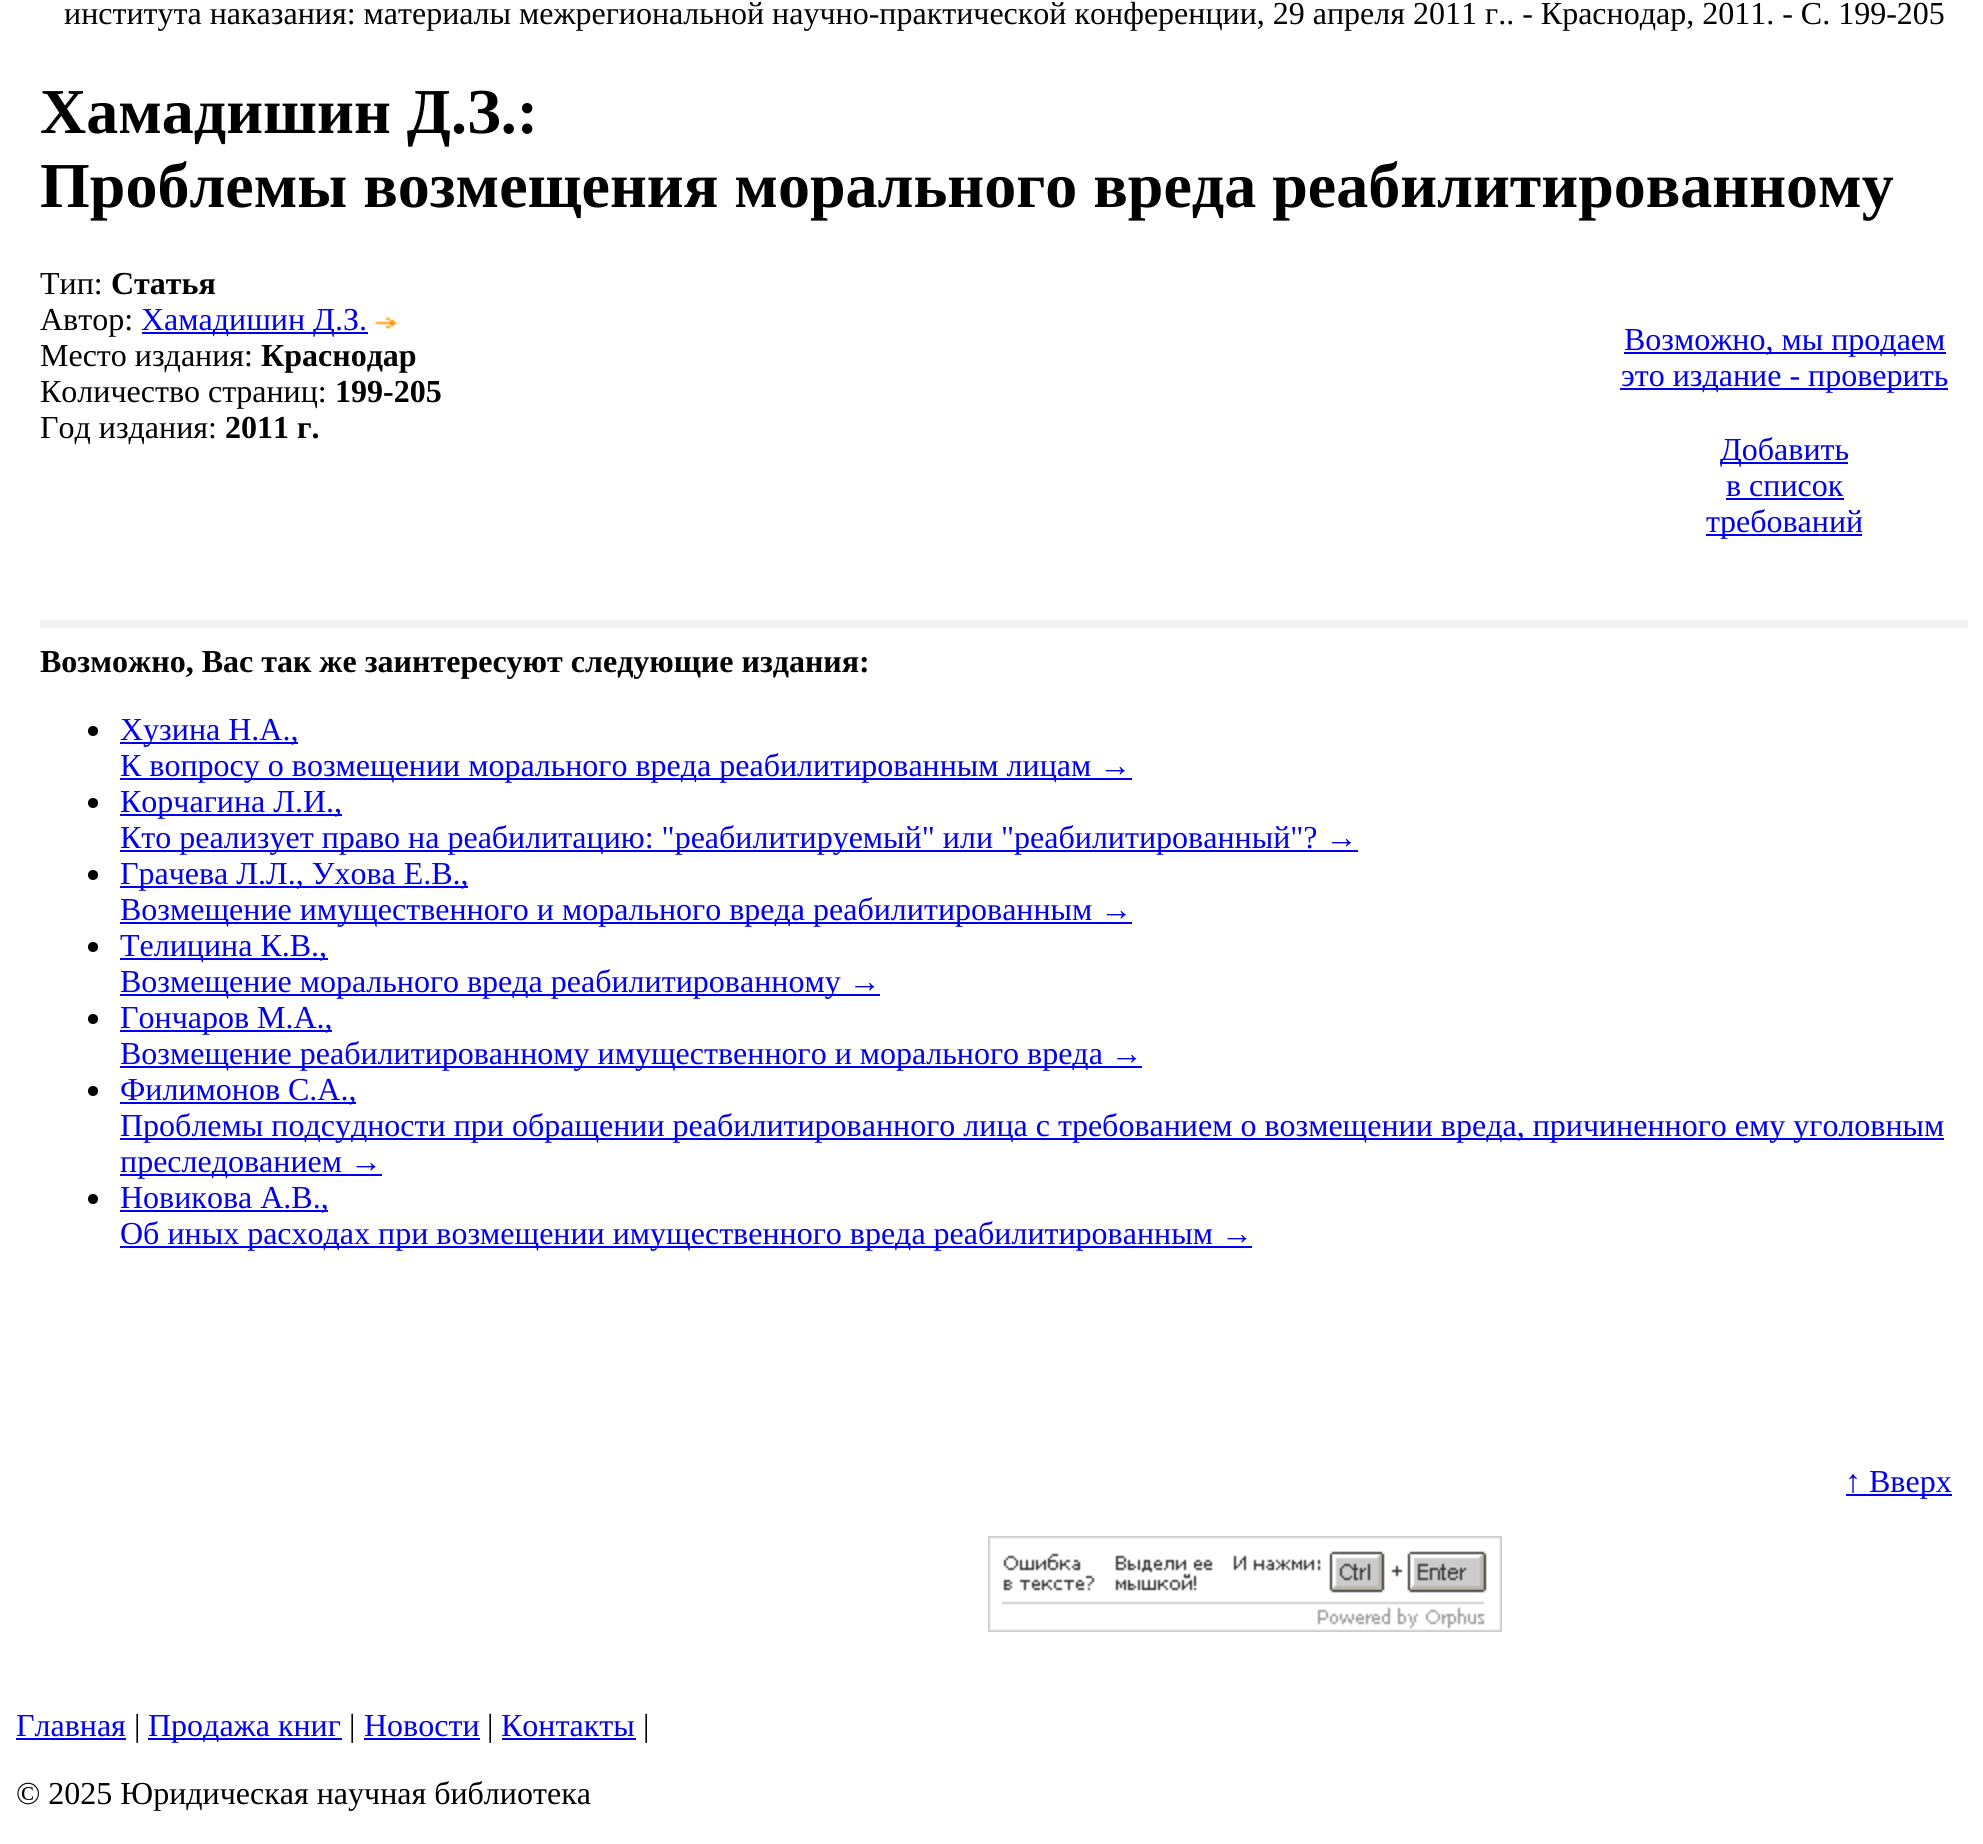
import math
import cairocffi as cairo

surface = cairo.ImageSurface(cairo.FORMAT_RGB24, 1983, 1844)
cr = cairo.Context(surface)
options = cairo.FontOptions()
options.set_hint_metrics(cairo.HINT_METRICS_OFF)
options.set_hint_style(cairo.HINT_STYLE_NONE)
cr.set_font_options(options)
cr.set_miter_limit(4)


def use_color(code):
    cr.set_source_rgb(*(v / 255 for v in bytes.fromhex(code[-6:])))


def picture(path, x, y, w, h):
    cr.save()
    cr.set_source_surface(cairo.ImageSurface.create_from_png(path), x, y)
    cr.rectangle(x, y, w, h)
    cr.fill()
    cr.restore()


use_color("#ffffff")
cr.paint()
cr.select_font_face("Liberation Serif")
cr.set_font_size(32)
use_color("#000000")
cr.move_to(64, 24)
cr.show_text("института наказания: материалы межрегиональной научно-практической конференции, 29 апреля 2011 г.. - Краснодар, 2011. - С. 199-205")
cr.select_font_face("Liberation Serif", cairo.FONT_SLANT_NORMAL, cairo.FONT_WEIGHT_BOLD)
cr.set_font_size(64)
cr.move_to(40, 133)
cr.show_text("Хамадишин Д.З.:")
cr.move_to(40, 207)
cr.show_text("Проблемы возмещения морального вреда реабилитированному")
cr.select_font_face("Liberation Serif")
cr.set_font_size(32)
cr.move_to(40, 294)
cr.show_text("Тип:")
cr.select_font_face("Liberation Serif", cairo.FONT_SLANT_NORMAL, cairo.FONT_WEIGHT_BOLD)
cr.move_to(111, 294)
cr.show_text("Статья")
cr.select_font_face("Liberation Serif")
cr.move_to(40, 330)
cr.show_text("Автор:")
use_color("#0000ee")
cr.rectangle(142, 332, 226, 2)
cr.fill()
cr.move_to(141, 330)
cr.show_text("Хамадишин Д.З.")
picture("img1.png", 375, 317, 22, 12)
use_color("#000000")
cr.move_to(40, 366)
cr.show_text("Место издания:")
cr.select_font_face("Liberation Serif", cairo.FONT_SLANT_NORMAL, cairo.FONT_WEIGHT_BOLD)
cr.move_to(261, 366)
cr.show_text("Краснодар")
cr.select_font_face("Liberation Serif")
cr.move_to(40, 402)
cr.show_text("Количество страниц:")
cr.select_font_face("Liberation Serif", cairo.FONT_SLANT_NORMAL, cairo.FONT_WEIGHT_BOLD)
cr.move_to(335, 402)
cr.show_text("199-205")
cr.select_font_face("Liberation Serif")
cr.move_to(40, 438)
cr.show_text("Год издания:")
cr.select_font_face("Liberation Serif", cairo.FONT_SLANT_NORMAL, cairo.FONT_WEIGHT_BOLD)
cr.move_to(225, 438)
cr.show_text("2011 г.")
use_color("#0000ee")
cr.rectangle(1624, 352, 322, 2)
cr.fill()
cr.select_font_face("Liberation Serif")
cr.move_to(1624, 350)
cr.show_text("Возможно, мы продаем")
cr.rectangle(1620, 388, 328, 2)
cr.fill()
cr.move_to(1621, 386)
cr.show_text("это издание - проверить")
cr.rectangle(1720, 462, 128, 2)
cr.fill()
cr.move_to(1720, 460)
cr.show_text("Добавить")
cr.move_to(1726, 496)
cr.show_text("в список")
cr.rectangle(1726, 498, 118, 2)
cr.fill()
cr.rectangle(1706, 534, 156, 2)
cr.fill()
cr.move_to(1706, 532)
cr.show_text("требований")
use_color("#f1f1f1")
cr.rectangle(40, 620, 1928, 8)
cr.fill()
cr.select_font_face("Liberation Serif", cairo.FONT_SLANT_NORMAL, cairo.FONT_WEIGHT_BOLD)
use_color("#000000")
cr.move_to(40, 672)
cr.show_text("Возможно, Вас так же заинтересуют следующие издания:")
cr.new_path()
cr.arc(93, 731, 5, 0, 2 * math.pi)
cr.fill()
use_color("#0000ee")
cr.rectangle(120, 742, 178, 2)
cr.fill()
cr.select_font_face("Liberation Serif")
cr.move_to(120, 740)
cr.show_text("Хузина Н.А.,")
cr.rectangle(120, 778, 1012, 2)
cr.fill()
cr.move_to(120, 776)
cr.show_text("К вопросу о возмещении морального вреда реабилитированным лицам →")
use_color("#000000")
cr.new_path()
cr.arc(93, 803, 5, 0, 2 * math.pi)
cr.fill()
use_color("#0000ee")
cr.rectangle(120, 814, 222, 2)
cr.fill()
cr.move_to(120, 812)
cr.show_text("Корчагина Л.И.,")
cr.rectangle(120, 850, 1238, 2)
cr.fill()
cr.move_to(120, 848)
cr.show_text("Кто реализует право на реабилитацию: \"реабилитируемый\" или \"реабилитированный\"? →")
use_color("#000000")
cr.new_path()
cr.arc(93, 875, 5, 0, 2 * math.pi)
cr.fill()
use_color("#0000ee")
cr.rectangle(120, 886, 348, 2)
cr.fill()
cr.move_to(120, 884)
cr.show_text("Грачева Л.Л., Ухова Е.В.,")
cr.rectangle(120, 922, 1012, 2)
cr.fill()
cr.move_to(120, 920)
cr.show_text("Возмещение имущественного и морального вреда реабилитированным →")
use_color("#000000")
cr.new_path()
cr.arc(93, 947, 5, 0, 2 * math.pi)
cr.fill()
use_color("#0000ee")
cr.rectangle(120, 958, 208, 2)
cr.fill()
cr.move_to(120, 956)
cr.show_text("Телицина К.В.,")
cr.rectangle(120, 994, 760, 2)
cr.fill()
cr.move_to(120, 992)
cr.show_text("Возмещение морального вреда реабилитированному →")
use_color("#000000")
cr.new_path()
cr.arc(93, 1019, 5, 0, 2 * math.pi)
cr.fill()
use_color("#0000ee")
cr.rectangle(120, 1030, 212, 2)
cr.fill()
cr.move_to(120, 1028)
cr.show_text("Гончаров М.А.,")
cr.rectangle(120, 1066, 1022, 2)
cr.fill()
cr.move_to(120, 1064)
cr.show_text("Возмещение реабилитированному имущественного и морального вреда →")
use_color("#000000")
cr.new_path()
cr.arc(93, 1091, 5, 0, 2 * math.pi)
cr.fill()
use_color("#0000ee")
cr.rectangle(120, 1102, 236, 2)
cr.fill()
cr.move_to(120, 1100)
cr.show_text("Филимонов С.А.,")
cr.rectangle(120, 1138, 1824, 2)
cr.fill()
cr.move_to(120, 1136)
cr.show_text("Проблемы подсудности при обращении реабилитированного лица с требованием о возмещении вреда, причиненного ему уголовным")
cr.rectangle(120, 1174, 262, 2)
cr.fill()
cr.move_to(120, 1172)
cr.show_text("преследованием →")
use_color("#000000")
cr.new_path()
cr.arc(93, 1199, 5, 0, 2 * math.pi)
cr.fill()
use_color("#0000ee")
cr.rectangle(120, 1210, 208, 2)
cr.fill()
cr.move_to(120, 1208)
cr.show_text("Новикова А.В.,")
cr.rectangle(120, 1246, 1132, 2)
cr.fill()
cr.move_to(120, 1244)
cr.show_text("Об иных расходах при возмещении имущественного вреда реабилитированным →")
cr.rectangle(1846, 1494, 106, 2)
cr.fill()
cr.move_to(1845, 1492)
cr.show_text("↑ Вверх")
picture("img2.png", 988, 1536, 514, 96)
cr.move_to(16, 1736)
cr.show_text("Главная")
cr.rectangle(16, 1738, 110, 2)
cr.fill()
use_color("#000000")
cr.move_to(134, 1736)
cr.show_text("|")
use_color("#0000ee")
cr.rectangle(148, 1738, 194, 2)
cr.fill()
cr.move_to(148, 1736)
cr.show_text("Продажа книг")
use_color("#000000")
cr.move_to(349, 1736)
cr.show_text("|")
use_color("#0000ee")
cr.move_to(364, 1736)
cr.show_text("Новости")
cr.rectangle(364, 1738, 116, 2)
cr.fill()
use_color("#000000")
cr.move_to(487, 1736)
cr.show_text("|")
use_color("#0000ee")
cr.move_to(501, 1736)
cr.show_text("Контакты")
cr.rectangle(502, 1738, 134, 2)
cr.fill()
use_color("#000000")
cr.move_to(643, 1736)
cr.show_text("|")
cr.move_to(16, 1804)
cr.show_text("© 2025 Юридическая научная библиотека")
surface.write_to_png("result.png")
